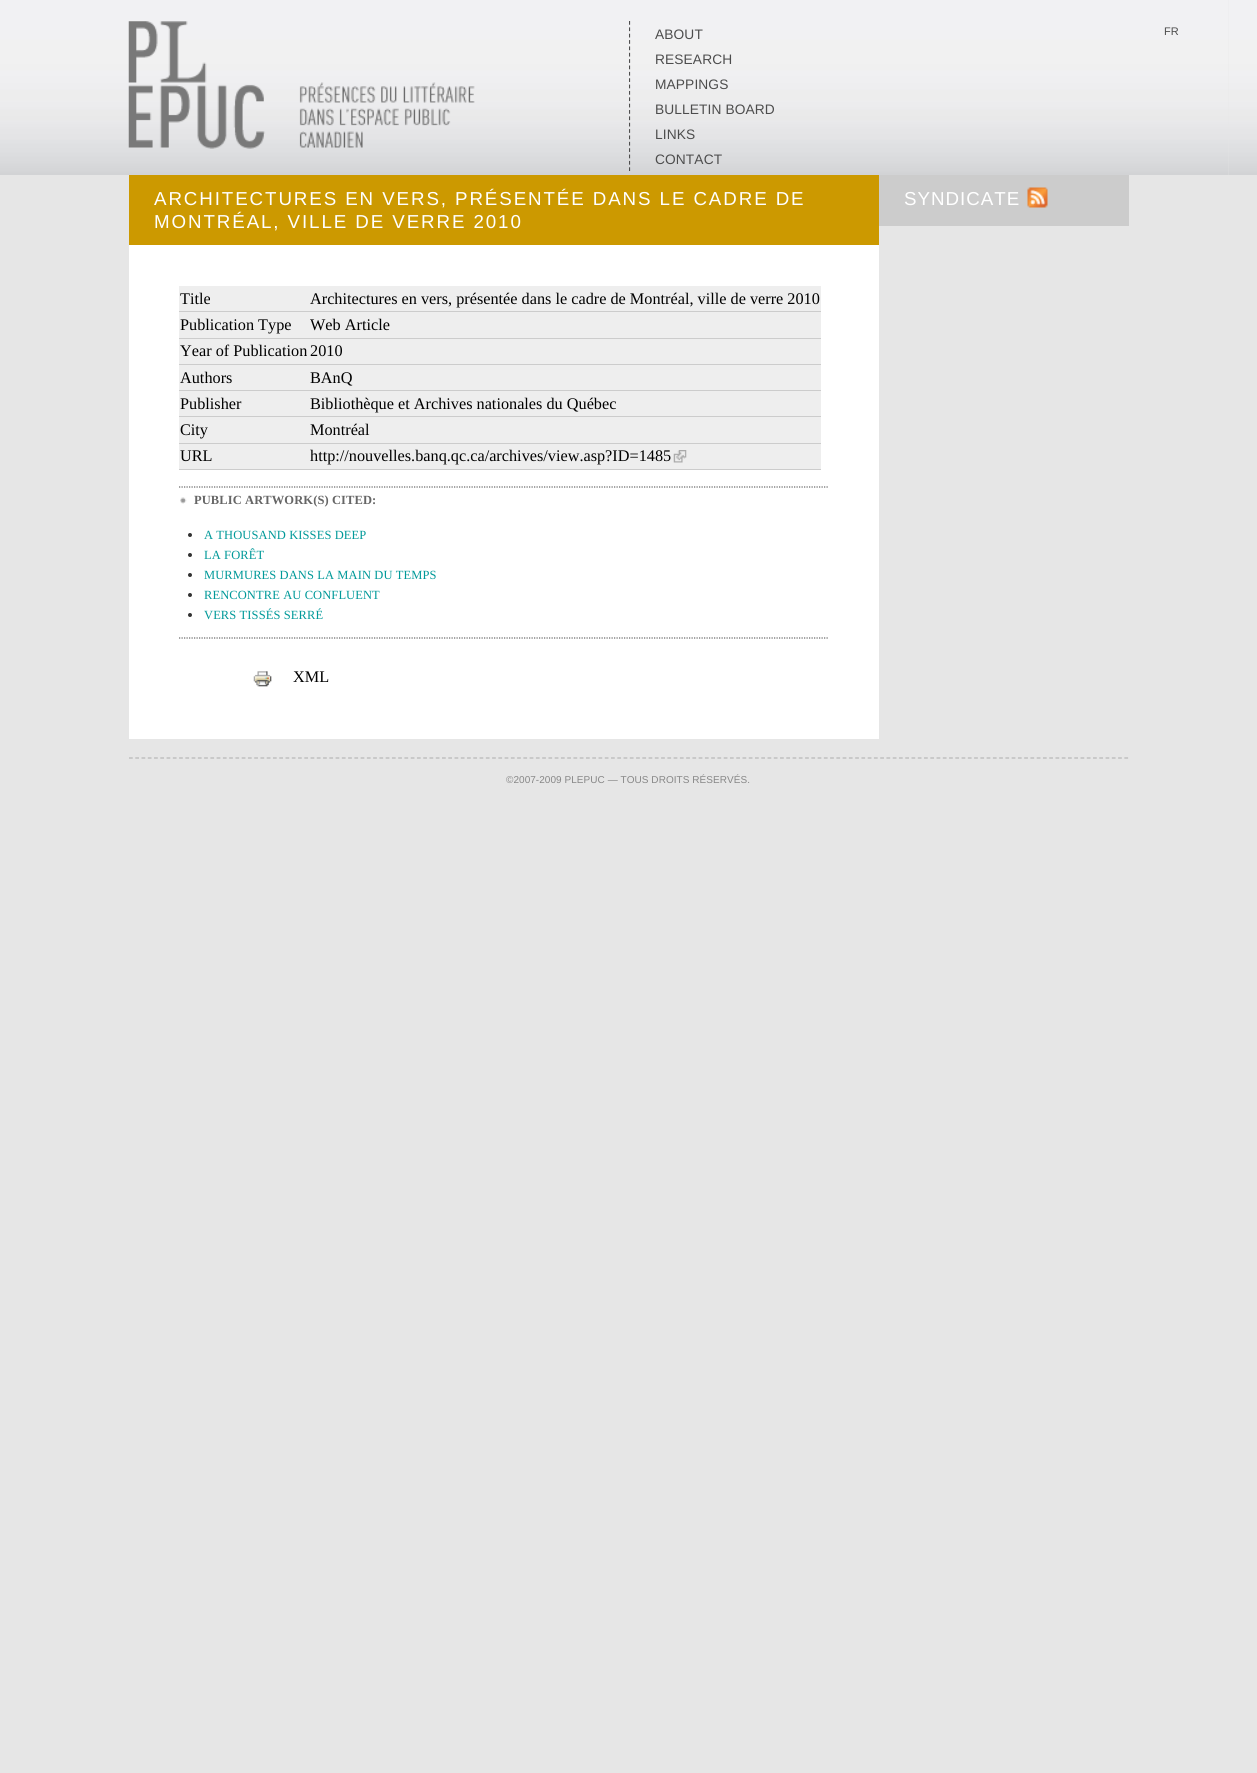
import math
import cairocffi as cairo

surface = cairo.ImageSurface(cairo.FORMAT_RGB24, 1257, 1773)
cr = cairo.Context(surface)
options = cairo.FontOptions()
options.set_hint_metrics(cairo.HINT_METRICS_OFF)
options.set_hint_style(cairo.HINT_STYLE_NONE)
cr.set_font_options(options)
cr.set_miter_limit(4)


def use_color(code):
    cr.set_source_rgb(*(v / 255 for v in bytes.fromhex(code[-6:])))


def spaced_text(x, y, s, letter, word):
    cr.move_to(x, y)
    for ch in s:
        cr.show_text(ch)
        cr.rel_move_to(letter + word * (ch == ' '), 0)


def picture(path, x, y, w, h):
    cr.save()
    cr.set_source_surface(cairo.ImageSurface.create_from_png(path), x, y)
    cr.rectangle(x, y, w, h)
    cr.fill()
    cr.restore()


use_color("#e6e6e6")
cr.paint()
picture("img1.png", 0, 0, 1257, 175)
use_color("#e6e6e6")
cr.rectangle(29, 0, 1200, 175)
cr.fill()
picture("img2.png", 29, 0, 1200, 175)
picture("img3.png", 128, 21, 347, 128)
cr.save()
cr.rectangle(629, 0, 500, 175)
cr.clip()
cr.new_path()
cr.move_to(629.5, 21)
cr.line_to(629.5, 171)
use_color("#4d4d4d")
cr.set_line_width(1.2)
cr.set_dash([3.75, 2.61])
cr.stroke()
cr.restore()
cr.select_font_face("Liberation Sans")
cr.set_font_size(13.75)
use_color("#4d4d4d")
spaced_text(655, 39, "ABOUT", 0.1, 0)
spaced_text(655, 64, "RESEARCH", 0.1, 0)
spaced_text(655, 89, "MAPPINGS", 0.1, 0)
spaced_text(655, 114, "BULLETIN BOARD", 0.1, 0)
spaced_text(655, 139, "LINKS", 0.1, 0)
spaced_text(655, 164, "CONTACT", 0.1, 0)
cr.set_font_size(11)
cr.move_to(1164, 35)
cr.show_text("FR")
use_color("#ffffff")
cr.rectangle(129, 245, 750, 494)
cr.fill()
use_color("#cc9900")
cr.rectangle(129, 175, 750, 70)
cr.fill()
cr.set_font_size(18.75)
use_color("#ffffff")
spaced_text(154, 205, "ARCHITECTURES EN VERS, PRÉSENTÉE DANS LE CADRE DE", 1.9, 0)
spaced_text(154, 228, "MONTRÉAL, VILLE DE VERRE 2010", 1.9, 0)
use_color("#eeeeee")
cr.rectangle(179, 286, 642, 52)
cr.fill()
use_color("#cccccc")
cr.rectangle(179, 311, 642, 1)
cr.fill()
cr.select_font_face("Liberation Serif")
cr.set_font_size(16.25)
use_color("#000000")
cr.move_to(180, 304)
cr.show_text("Title")
cr.move_to(310, 304)
cr.show_text("Architectures en vers, présentée dans le cadre de Montréal, ville de verre 2010")
use_color("#cccccc")
cr.rectangle(179, 338, 642, 1)
cr.fill()
use_color("#000000")
cr.move_to(180, 330)
cr.show_text("Publication Type")
cr.move_to(310, 330)
cr.show_text("Web Article")
use_color("#eeeeee")
cr.rectangle(179, 339, 642, 25)
cr.fill()
use_color("#cccccc")
cr.rectangle(179, 364, 642, 1)
cr.fill()
use_color("#000000")
cr.move_to(180, 356)
cr.show_text("Year of Publication")
cr.move_to(310, 356)
cr.show_text("2010")
use_color("#eeeeee")
cr.rectangle(179, 365, 642, 25)
cr.fill()
use_color("#cccccc")
cr.rectangle(179, 390, 642, 1)
cr.fill()
use_color("#000000")
cr.move_to(180, 383)
cr.show_text("Authors")
cr.move_to(310, 383)
cr.show_text("BAnQ")
use_color("#eeeeee")
cr.rectangle(179, 391, 642, 52)
cr.fill()
use_color("#cccccc")
cr.rectangle(179, 416, 642, 1)
cr.fill()
use_color("#000000")
cr.move_to(180, 409)
cr.show_text("Publisher")
cr.move_to(310, 409)
cr.show_text("Bibliothèque et Archives nationales du Québec")
use_color("#cccccc")
cr.rectangle(179, 443, 642, 1)
cr.fill()
use_color("#000000")
cr.move_to(180, 435)
cr.show_text("City")
cr.move_to(310, 435)
cr.show_text("Montréal")
use_color("#eeeeee")
cr.rectangle(179, 444, 642, 25)
cr.fill()
use_color("#cccccc")
cr.rectangle(179, 469, 642, 1)
cr.fill()
use_color("#000000")
cr.move_to(180, 461)
cr.show_text("URL")
cr.move_to(310, 461)
cr.show_text("http://nouvelles.banq.qc.ca/archives/view.asp?ID=1485")
picture("img4.png", 673, 450, 14, 13)
cr.new_path()
cr.move_to(179, 487)
cr.line_to(829, 487)
use_color("#666666")
cr.set_line_width(1.2)
cr.set_dash([1.25, 1.25])
cr.stroke()
cr.new_path()
cr.move_to(179, 638)
cr.line_to(829, 638)
cr.stroke()
picture("img5.png", 180, 497, 7, 7)
cr.select_font_face("Liberation Serif", cairo.FONT_SLANT_NORMAL, cairo.FONT_WEIGHT_BOLD)
cr.set_font_size(12.5)
spaced_text(194, 504, "PUBLIC ARTWORK(S) CITED:", 0.1, 0)
use_color("#333333")
cr.new_path()
cr.arc(190, 535, 2, 0, 2 * math.pi)
cr.fill()
cr.select_font_face("Liberation Serif")
use_color("#009999")
spaced_text(204, 539, "A THOUSAND KISSES DEEP", 0.1, 0)
use_color("#333333")
cr.new_path()
cr.arc(190, 555, 2, 0, 2 * math.pi)
cr.fill()
use_color("#009999")
spaced_text(204, 559, "LA FORÊT", 0.1, 0)
use_color("#333333")
cr.new_path()
cr.arc(190, 575, 2, 0, 2 * math.pi)
cr.fill()
use_color("#009999")
spaced_text(204, 579, "MURMURES DANS LA MAIN DU TEMPS", 0.1, 0)
use_color("#333333")
cr.new_path()
cr.arc(190, 595, 2, 0, 2 * math.pi)
cr.fill()
use_color("#009999")
spaced_text(204, 599, "RENCONTRE AU CONFLUENT", 0.1, 0)
use_color("#333333")
cr.new_path()
cr.arc(190, 615, 2, 0, 2 * math.pi)
cr.fill()
use_color("#009999")
spaced_text(204, 619, "VERS TISSÉS SERRÉ", 0.1, 0)
picture("img6.png", 253, 671, 19, 16)
cr.set_font_size(16.25)
use_color("#000000")
cr.move_to(293, 682)
cr.show_text("XML")
use_color("#cccccc")
cr.rectangle(879, 175, 250, 51)
cr.fill()
cr.select_font_face("Liberation Sans")
cr.set_font_size(18.75)
use_color("#ffffff")
spaced_text(904, 205, "SYNDICATE", 1, 0)
picture("img7.png", 1027, 187, 21, 21)
cr.new_path()
cr.move_to(129, 758)
cr.line_to(1129, 758)
use_color("#b6b6b6")
cr.set_dash([3.75, 2.51])
cr.stroke()
cr.set_font_size(10)
use_color("#878787")
spaced_text(506, 783, "©2007-2009 PLEPUC — TOUS DROITS RÉSERVÉS.", 0.05, 0)
surface.write_to_png("result.png")
